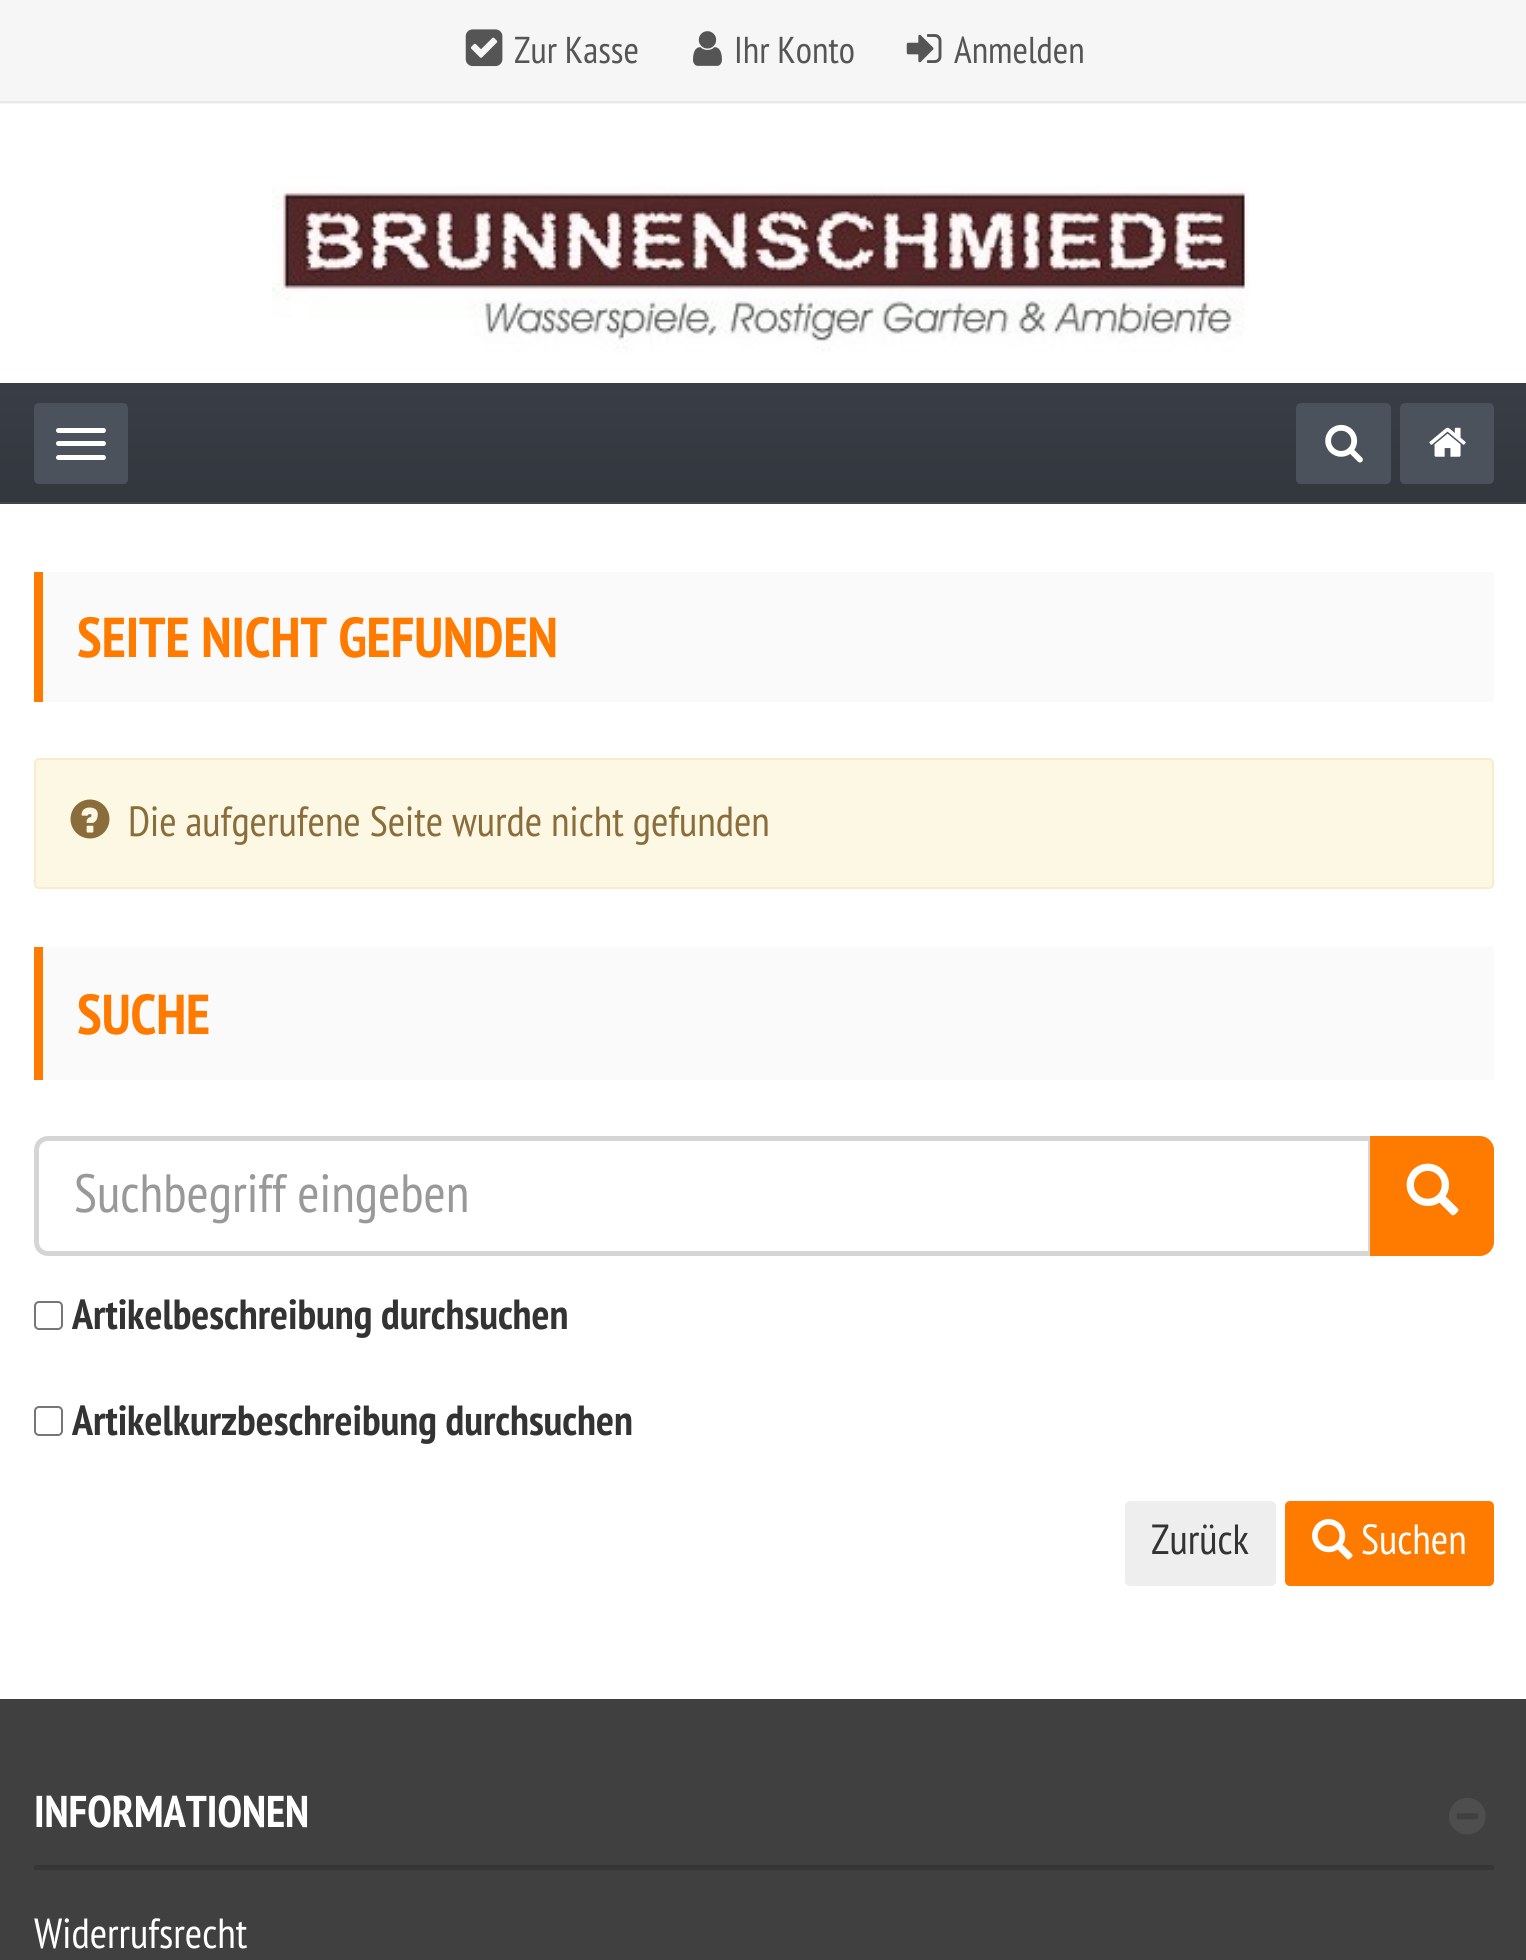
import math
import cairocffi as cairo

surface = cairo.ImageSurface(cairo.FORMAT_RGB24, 1526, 1960)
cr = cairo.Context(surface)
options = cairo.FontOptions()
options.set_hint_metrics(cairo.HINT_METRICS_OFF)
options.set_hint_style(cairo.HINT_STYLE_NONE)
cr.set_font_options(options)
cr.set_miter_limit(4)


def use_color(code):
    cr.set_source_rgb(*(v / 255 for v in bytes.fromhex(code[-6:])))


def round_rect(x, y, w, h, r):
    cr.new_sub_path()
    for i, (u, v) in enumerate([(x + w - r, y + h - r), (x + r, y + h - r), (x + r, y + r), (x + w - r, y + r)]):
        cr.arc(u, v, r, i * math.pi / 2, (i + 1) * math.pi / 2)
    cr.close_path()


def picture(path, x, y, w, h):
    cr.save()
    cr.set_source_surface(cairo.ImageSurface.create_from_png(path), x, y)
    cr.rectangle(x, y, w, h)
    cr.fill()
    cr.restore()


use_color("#ffffff")
cr.paint()
use_color("#f6f6f6")
cr.rectangle(0, 0, 1526, 104)
cr.fill()
use_color("#e9e9e9")
cr.rectangle(0, 101, 1526, 2)
cr.fill()
picture("img1.png", 465, 29, 38, 38)
cr.select_font_face("PT Sans Narrow")
cr.set_font_size(36)
use_color("#555555")
cr.move_to(514, 63)
cr.show_text("Zur Kasse")
picture("img2.png", 693, 31, 29, 35)
cr.move_to(734, 63)
cr.show_text("Ihr Konto")
picture("img3.png", 906, 34, 36, 29)
cr.move_to(954, 63)
cr.show_text("Anmelden")
picture("img4.png", 272, 186, 977, 167)
gradient = cairo.LinearGradient(764, 385, 764, 504)
gradient.add_color_stop_rgba(0, 0.224, 0.243, 0.275, 1)
gradient.add_color_stop_rgba(1, 0.196, 0.216, 0.243, 1)
cr.set_source(gradient)
cr.rectangle(0, 385, 1526, 117)
cr.fill()
use_color("#393e46")
cr.rectangle(0, 383, 1526, 2)
cr.fill()
use_color("#3e434c")
cr.rectangle(0, 502, 1526, 2)
cr.fill()
use_color("#4b525c")
round_rect(34, 403, 94, 81, 5)
cr.fill()
use_color("#ffffff")
round_rect(56, 428, 50, 5, 2.5)
cr.fill()
round_rect(56, 441, 50, 5, 2.5)
cr.fill()
round_rect(56, 455, 50, 5, 2.5)
cr.fill()
use_color("#4b525c")
round_rect(1296, 403, 95, 81, 5)
cr.fill()
picture("img5.png", 1325, 424, 38, 39)
round_rect(1400, 403, 94, 81, 5)
cr.fill()
picture("img6.png", 1429, 427, 37, 30)
use_color("#fafafa")
cr.rectangle(43, 572, 1451, 130)
cr.fill()
use_color("#ff7b00")
cr.rectangle(34, 572, 9, 130)
cr.fill()
cr.select_font_face("PT Sans Narrow", cairo.FONT_SLANT_NORMAL, cairo.FONT_WEIGHT_BOLD)
cr.set_font_size(54)
cr.move_to(77, 657)
cr.show_text("SEITE NICHT GEFUNDEN")
use_color("#fcf8e3")
round_rect(35, 759, 1458, 129, 4)
cr.fill_preserve()
use_color("#faebcc")
cr.stroke()
picture("img7.png", 70, 799, 40, 40)
cr.select_font_face("PT Sans Narrow")
cr.set_font_size(40.5)
use_color("#8a6d3b")
cr.move_to(128, 836)
cr.show_text("Die aufgerufene Seite wurde nicht gefunden")
use_color("#fafafa")
cr.rectangle(43, 947, 1451, 133)
cr.fill()
use_color("#ff7b00")
cr.rectangle(34, 947, 9, 133)
cr.fill()
cr.select_font_face("PT Sans Narrow", cairo.FONT_SLANT_NORMAL, cairo.FONT_WEIGHT_BOLD)
cr.set_font_size(54)
cr.move_to(77, 1034)
cr.show_text("SUCHE")
cr.new_path()
cr.move_to(48, 1138.5)
cr.line_to(1370.5, 1138.5)
cr.line_to(1370.5, 1253.5)
cr.line_to(48, 1253.5)
cr.curve_to(41.5, 1253.5, 36.5, 1248.5, 36.5, 1242)
cr.line_to(36.5, 1150)
cr.curve_to(36.5, 1143.5, 41.5, 1138.5, 48, 1138.5)
cr.close_path()
use_color("#d5d5d5")
cr.set_line_width(5)
cr.stroke()
cr.select_font_face("PT Sans Narrow")
cr.set_font_size(51.75)
use_color("#999999")
cr.move_to(74, 1212)
cr.show_text("Suchbegriff eingeben")
use_color("#ff7b00")
cr.new_path()
cr.move_to(1370, 1136)
cr.line_to(1480, 1136)
cr.curve_to(1487.5, 1136, 1494, 1142.5, 1494, 1150)
cr.line_to(1494, 1242)
cr.curve_to(1494, 1249.5, 1487.5, 1256, 1480, 1256)
cr.line_to(1370, 1256)
cr.close_path()
cr.fill()
picture("img8.png", 1406, 1163, 53, 53)
round_rect(35, 1302, 27, 27, 4)
use_color("#767676")
cr.set_line_width(2)
cr.stroke()
cr.select_font_face("PT Sans Narrow", cairo.FONT_SLANT_NORMAL, cairo.FONT_WEIGHT_BOLD)
cr.set_font_size(40.5)
use_color("#333333")
cr.move_to(72, 1329)
cr.show_text("Artikelbeschreibung durchsuchen")
round_rect(35, 1407, 27, 28, 4)
use_color("#767676")
cr.stroke()
use_color("#333333")
cr.move_to(72, 1435)
cr.show_text("Artikelkurzbeschreibung durchsuchen")
use_color("#eeeeee")
round_rect(1125, 1501, 151, 85, 5)
cr.fill()
cr.select_font_face("PT Sans Narrow")
use_color("#333333")
cr.move_to(1151, 1554)
cr.show_text("Zurück")
use_color("#ff7b00")
round_rect(1285, 1501, 209, 85, 5)
cr.fill()
picture("img9.png", 1312, 1519, 41, 41)
use_color("#ffffff")
cr.move_to(1361, 1554)
cr.show_text("Suchen")
use_color("#404040")
cr.rectangle(0, 1699, 1526, 261)
cr.fill()
use_color("#363636")
cr.rectangle(34, 1865, 1460, 5)
cr.fill()
cr.select_font_face("PT Sans Narrow", cairo.FONT_SLANT_NORMAL, cairo.FONT_WEIGHT_BOLD)
cr.set_font_size(42.75)
use_color("#ffffff")
cr.move_to(34, 1827)
cr.show_text("INFORMATIONEN")
picture("img10.png", 1449, 1798, 37, 37)
cr.select_font_face("PT Sans Narrow")
cr.set_font_size(40.5)
cr.move_to(34, 1948)
cr.show_text("Widerrufsrecht")
surface.write_to_png("result.png")
